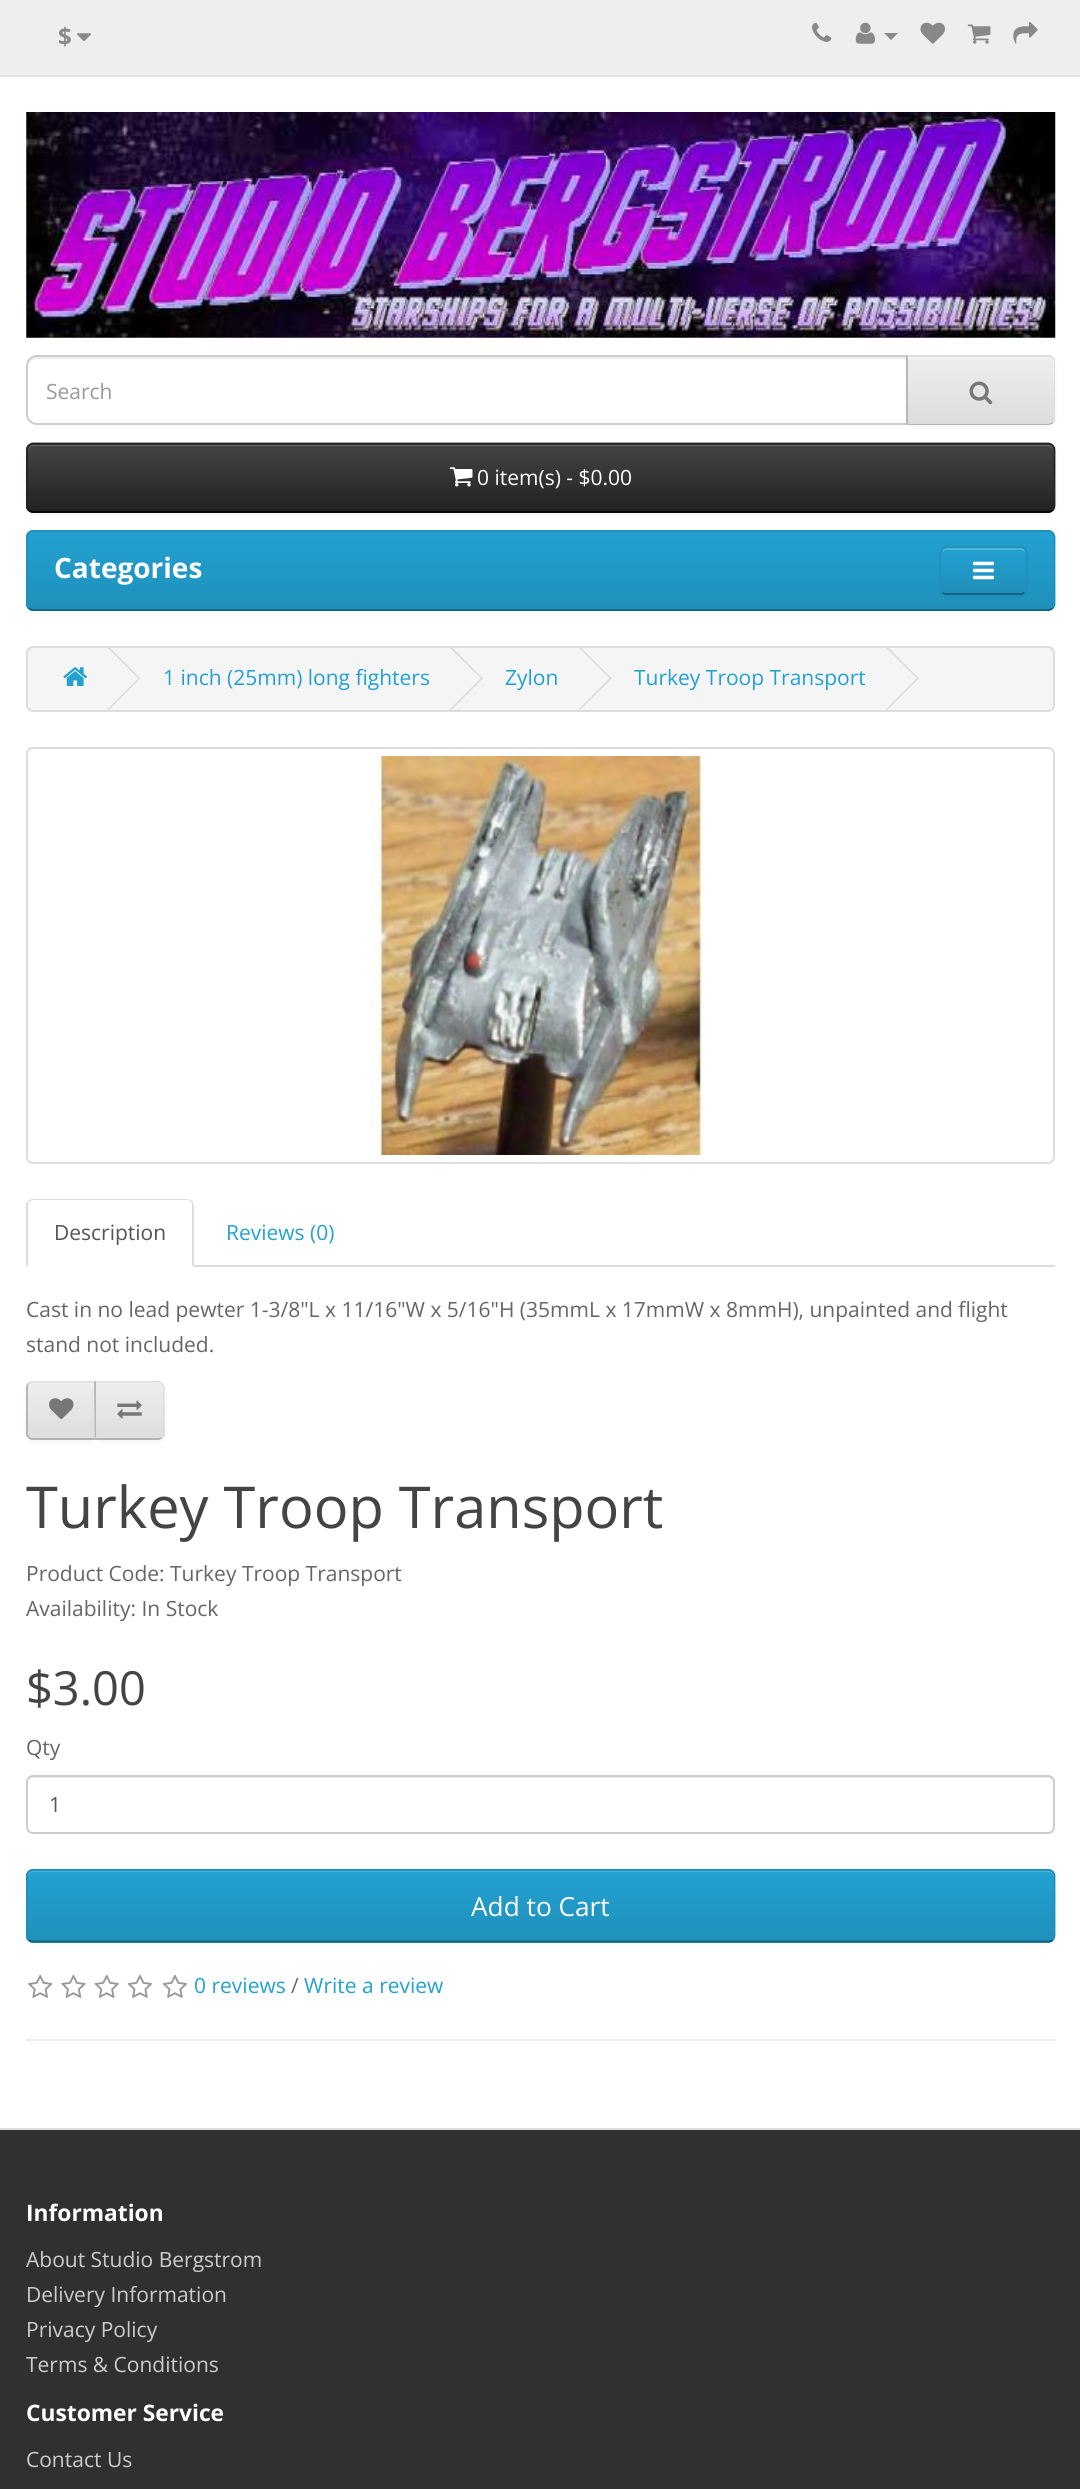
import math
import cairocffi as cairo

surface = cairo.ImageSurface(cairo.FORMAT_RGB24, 1080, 2489)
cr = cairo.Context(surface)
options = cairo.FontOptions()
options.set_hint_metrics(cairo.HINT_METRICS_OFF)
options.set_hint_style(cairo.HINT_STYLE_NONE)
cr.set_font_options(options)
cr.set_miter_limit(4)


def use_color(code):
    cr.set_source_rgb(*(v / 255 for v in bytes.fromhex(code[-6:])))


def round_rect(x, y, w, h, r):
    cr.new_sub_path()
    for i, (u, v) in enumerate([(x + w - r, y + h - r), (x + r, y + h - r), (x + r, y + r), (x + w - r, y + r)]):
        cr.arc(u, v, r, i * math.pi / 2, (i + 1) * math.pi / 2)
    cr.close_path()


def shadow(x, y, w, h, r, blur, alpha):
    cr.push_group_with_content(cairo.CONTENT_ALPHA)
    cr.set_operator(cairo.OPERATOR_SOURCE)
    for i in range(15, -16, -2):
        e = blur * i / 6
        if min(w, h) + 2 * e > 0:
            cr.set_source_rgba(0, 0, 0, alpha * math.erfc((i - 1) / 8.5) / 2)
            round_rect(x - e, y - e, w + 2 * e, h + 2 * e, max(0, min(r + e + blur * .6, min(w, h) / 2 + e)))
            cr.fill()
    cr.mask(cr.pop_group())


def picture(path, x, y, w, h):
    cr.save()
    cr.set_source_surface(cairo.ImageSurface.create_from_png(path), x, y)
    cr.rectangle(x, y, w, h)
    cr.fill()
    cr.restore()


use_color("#ffffff")
cr.paint()
use_color("#eeeeee")
cr.rectangle(0, 0, 1080, 75)
cr.fill()
use_color("#e2e2e2")
cr.rectangle(0, 75, 1080, 2)
cr.fill()
cr.select_font_face("Open Sans", cairo.FONT_SLANT_NORMAL, cairo.FONT_WEIGHT_BOLD)
cr.set_font_size(24)
use_color("#888888")
cr.move_to(58, 45)
cr.show_text("$")
picture("img1.png", 77, 33, 14, 8)
picture("img2.png", 812, 22, 20, 20)
picture("img3.png", 855, 22, 20, 22)
cr.new_path()
cr.move_to(884, 33)
cr.line_to(898, 33)
cr.line_to(891, 40)
cr.close_path()
cr.fill()
picture("img4.png", 920, 22, 25, 22)
picture("img5.png", 967, 24, 24, 20)
picture("img6.png", 1013, 22, 25, 22)
picture("img7.png", 26, 112, 1030, 226)
use_color("#ececec")
cr.new_path()
cr.move_to(37, 359)
cr.line_to(906, 359)
cr.line_to(906, 424)
cr.line_to(907, 424)
cr.line_to(907, 357)
cr.line_to(37, 357)
cr.curve_to(32, 357, 28, 361, 28, 366)
cr.line_to(28, 368)
cr.curve_to(28, 363, 32, 359, 37, 359)
cr.close_path()
cr.fill()
cr.new_path()
cr.move_to(37, 356)
cr.line_to(907, 356)
cr.line_to(907, 424)
cr.line_to(37, 424)
cr.curve_to(31.5, 424, 27, 419.5, 27, 414)
cr.line_to(27, 366)
cr.curve_to(27, 360.5, 31.5, 356, 37, 356)
cr.close_path()
use_color("#cccccc")
cr.stroke()
cr.select_font_face("Open Sans")
cr.set_font_size(21)
use_color("#999999")
cr.move_to(46, 399)
cr.show_text("Search")
use_color("#000000")
shadow(907, 357, 148, 70, 7, 2, 0.05)
use_color("#e7e7e7")
cr.new_path()
cr.move_to(907, 355)
cr.line_to(1048, 355)
cr.curve_to(1052, 355, 1055, 358, 1055, 362)
cr.line_to(1055, 418)
cr.curve_to(1055, 422, 1052, 425, 1048, 425)
cr.line_to(907, 425)
cr.close_path()
cr.fill()
cr.save()
cr.new_path()
cr.move_to(907, 355)
cr.line_to(1048, 355)
cr.curve_to(1052, 355, 1055, 358, 1055, 362)
cr.line_to(1055, 418)
cr.curve_to(1055, 422, 1052, 425, 1048, 425)
cr.line_to(907, 425)
cr.close_path()
cr.clip()
gradient = cairo.LinearGradient(981, 357, 981, 424)
gradient.add_color_stop_rgba(0, 0.933, 0.933, 0.933, 1)
gradient.add_color_stop_rgba(1, 0.867, 0.867, 0.867, 1)
cr.set_source(gradient)
cr.rectangle(908, 357, 147, 67)
cr.fill()
cr.restore()
use_color("#f1f1f1")
cr.new_path()
cr.move_to(908, 359)
cr.line_to(1048, 359)
cr.curve_to(1051, 359, 1054, 361, 1054, 364)
cr.line_to(1054, 362)
cr.curve_to(1054, 359, 1052, 357, 1049, 357)
cr.line_to(908, 357)
cr.close_path()
cr.fill()
use_color("#dddddd")
cr.new_path()
cr.move_to(906, 355)
cr.line_to(1050, 355)
cr.line_to(1053, 357)
cr.line_to(1052, 358)
cr.curve_to(1051, 358, 1050, 357, 1048, 357)
cr.line_to(908, 357)
cr.close_path()
cr.fill()
cr.new_path()
cr.move_to(1053, 357)
cr.curve_to(1054, 358, 1055, 360, 1055, 362)
cr.line_to(1055, 418)
cr.curve_to(1055, 420, 1054, 422, 1053, 423)
cr.line_to(1052, 422)
cr.curve_to(1053, 421, 1054, 420, 1054, 418)
cr.line_to(1054, 362)
cr.curve_to(1054, 360, 1053, 359, 1052, 358)
cr.close_path()
cr.fill()
use_color("#b3b3b3")
cr.new_path()
cr.move_to(1053, 423)
cr.curve_to(1052, 424, 1050, 425, 1048, 425)
cr.line_to(907, 425)
cr.line_to(908, 424)
cr.line_to(1049, 424)
cr.line_to(1052, 422)
cr.close_path()
cr.fill()
use_color("#b7b7b7")
cr.new_path()
cr.move_to(908, 357)
cr.line_to(908, 424)
cr.line_to(906, 425)
cr.line_to(906, 355)
cr.close_path()
cr.fill()
picture("img8.png", 969, 381, 24, 24)
use_color("#000000")
shadow(26, 445, 1029, 70, 7, 2, 0.05)
use_color("#363636")
round_rect(26, 443, 1029, 70, 7)
cr.fill()
cr.save()
round_rect(26, 443, 1029, 70, 7)
cr.clip()
gradient = cairo.LinearGradient(541, 444, 541, 511)
gradient.add_color_stop_rgba(0, 0.267, 0.267, 0.267, 1)
gradient.add_color_stop_rgba(1, 0.133, 0.133, 0.133, 1)
cr.set_source(gradient)
cr.rectangle(26, 445, 1029, 66)
cr.fill()
cr.restore()
use_color("#696969")
cr.new_path()
cr.move_to(33, 446)
cr.line_to(1048, 446)
cr.curve_to(1051, 446, 1054, 449, 1054, 452)
cr.line_to(1054, 450)
cr.curve_to(1054, 447, 1052, 445, 1049, 445)
cr.line_to(33, 445)
cr.curve_to(30, 445, 28, 447, 28, 450)
cr.line_to(28, 452)
cr.curve_to(28, 449, 30, 446, 33, 446)
cr.close_path()
cr.fill()
cr.new_path()
cr.move_to(1052.5, 510)
cr.curve_to(1051.5, 511, 1050, 512, 1048, 512)
cr.line_to(33, 512)
cr.curve_to(31.5, 512, 30, 511, 29, 510)
use_color("#000000")
cr.set_line_width(1.8)
cr.stroke()
cr.new_path()
cr.move_to(29, 510)
cr.curve_to(28, 509, 27, 507.5, 27, 506)
cr.line_to(27, 450)
cr.curve_to(27, 448, 28, 446.5, 29, 445.5)
cr.curve_to(30, 444.5, 31.5, 443.5, 33, 443.5)
cr.line_to(1048, 443.5)
cr.curve_to(1050, 443.5, 1051.5, 444.5, 1052.5, 445.5)
cr.curve_to(1053.5, 446.5, 1054.5, 448, 1054.5, 450)
cr.line_to(1054.5, 506)
cr.curve_to(1054.5, 507.5, 1053.5, 509, 1052.5, 510)
use_color("#222222")
cr.stroke()
picture("img9.png", 449, 467, 24, 20)
use_color("#ffffff")
cr.move_to(477, 485)
cr.show_text("0 item(s) - $0.00")
use_color("#229ac8")
round_rect(26, 530, 1029, 81, 7)
cr.fill()
cr.save()
round_rect(26, 530, 1029, 81, 7)
cr.clip()
gradient = cairo.LinearGradient(541, 532, 541, 609)
gradient.add_color_stop_rgba(0, 0.137, 0.631, 0.82, 1)
gradient.add_color_stop_rgba(1, 0.122, 0.565, 0.733, 1)
cr.set_source(gradient)
cr.rectangle(26, 532, 1029, 77)
cr.fill()
cr.restore()
cr.new_path()
cr.move_to(1052.5, 608)
cr.curve_to(1051.5, 609, 1050, 610, 1048, 610)
cr.line_to(33, 610)
cr.curve_to(31.5, 610, 30, 609, 29, 608)
use_color("#145e7a")
cr.stroke()
cr.new_path()
cr.move_to(29, 608)
cr.line_to(27, 605)
cr.line_to(27, 536.5)
cr.line_to(28.5, 533.5)
cr.curve_to(29.5, 532, 31.5, 531, 33, 531)
cr.line_to(1048, 531)
cr.curve_to(1050, 531, 1052, 532, 1053, 533.5)
cr.line_to(1054.5, 536.5)
cr.line_to(1054.5, 605)
cr.line_to(1052.5, 608)
use_color("#1f90bb")
cr.stroke()
cr.select_font_face("Open Sans", cairo.FONT_SLANT_NORMAL, cairo.FONT_WEIGHT_BOLD)
cr.set_font_size(28)
use_color("#ffffff")
cr.move_to(54, 578)
cr.show_text("Categories")
use_color("#000000")
shadow(940, 548, 87, 49, 7, 2, 0.05)
cr.save()
round_rect(940, 546, 87, 49, 7)
cr.clip()
gradient = cairo.LinearGradient(984, 548, 984, 593)
gradient.add_color_stop_rgba(0, 0.137, 0.631, 0.82, 1)
gradient.add_color_stop_rgba(1, 0.122, 0.565, 0.733, 1)
cr.set_source(gradient)
cr.rectangle(940, 548, 87, 45)
cr.fill()
cr.restore()
use_color("#4fb3da")
cr.new_path()
cr.move_to(947, 550)
cr.line_to(1020, 550)
cr.curve_to(1023, 550, 1026, 552, 1026, 555)
cr.curve_to(1026, 545, 1017, 548, 1009, 548)
cr.line_to(959, 548)
cr.curve_to(951, 548, 942, 545, 942, 555)
cr.curve_to(942, 552, 944, 550, 947, 550)
cr.close_path()
cr.fill()
cr.new_path()
cr.move_to(1024.5, 592.5)
cr.curve_to(1023.5, 593.5, 1022, 594, 1020, 594)
cr.line_to(947, 594)
cr.curve_to(945, 594, 943.5, 593.5, 942.5, 592.5)
use_color("#145e7a")
cr.stroke()
cr.new_path()
cr.move_to(942.5, 592.5)
cr.curve_to(941.5, 591, 940.5, 589.5, 940.5, 588)
cr.line_to(940.5, 553)
cr.curve_to(940.5, 551.5, 941.5, 550, 942.5, 548.5)
cr.curve_to(943.5, 547.5, 945, 547, 947, 547)
cr.line_to(1020, 547)
cr.curve_to(1022, 547, 1023.5, 547.5, 1024.5, 548.5)
cr.curve_to(1025.5, 550, 1026.5, 551.5, 1026.5, 553)
cr.line_to(1026.5, 588)
cr.curve_to(1026.5, 589.5, 1025.5, 591, 1024.5, 592.5)
use_color("#1f90bb")
cr.stroke()
picture("img10.png", 973, 561, 21, 19)
use_color("#f5f5f5")
round_rect(27, 647, 1027, 64, 6)
cr.fill_preserve()
use_color("#dddddd")
cr.set_line_width(2)
cr.stroke()
picture("img11.png", 63, 667, 24, 19)
cr.new_path()
cr.move_to(107, 647.5)
cr.line_to(108.5, 646)
cr.line_to(140.5, 678.5)
cr.line_to(139.5, 679.5)
cr.close_path()
cr.fill()
cr.new_path()
cr.move_to(107, 709.5)
cr.line_to(139.5, 677)
cr.line_to(140.5, 678.5)
cr.line_to(108.5, 710.5)
cr.close_path()
cr.fill()
cr.select_font_face("Open Sans")
cr.set_font_size(21)
use_color("#23a1d1")
cr.move_to(163, 685)
cr.show_text("1 inch (25mm) long fighters")
use_color("#dddddd")
cr.new_path()
cr.move_to(449.5, 647.5)
cr.line_to(451, 646)
cr.line_to(483, 678.5)
cr.line_to(482, 679.5)
cr.close_path()
cr.fill()
cr.new_path()
cr.move_to(449.5, 709.5)
cr.line_to(482, 677)
cr.line_to(483, 678.5)
cr.line_to(451, 710.5)
cr.close_path()
cr.fill()
use_color("#23a1d1")
cr.move_to(505, 685)
cr.show_text("Zylon")
use_color("#dddddd")
cr.new_path()
cr.move_to(578.5, 647.5)
cr.line_to(579.5, 646)
cr.line_to(612, 678.5)
cr.line_to(610.5, 679.5)
cr.close_path()
cr.fill()
cr.new_path()
cr.move_to(578.5, 709.5)
cr.line_to(610.5, 677)
cr.line_to(612, 678.5)
cr.line_to(579.5, 710.5)
cr.close_path()
cr.fill()
use_color("#23a1d1")
cr.move_to(634, 685)
cr.show_text("Turkey Troop Transport")
use_color("#dddddd")
cr.new_path()
cr.move_to(885.5, 647.5)
cr.line_to(887, 646)
cr.line_to(919, 678.5)
cr.line_to(918, 679.5)
cr.close_path()
cr.fill()
cr.new_path()
cr.move_to(885.5, 709.5)
cr.line_to(918, 677)
cr.line_to(919, 678.5)
cr.line_to(887, 710.5)
cr.close_path()
cr.fill()
round_rect(27, 748, 1027, 415, 6)
cr.stroke()
picture("img12.png", 369, 756, 336, 399)
cr.rectangle(194, 1265, 861, 2)
cr.fill()
cr.new_path()
cr.move_to(33, 1199)
cr.curve_to(31, 1199, 29, 1200, 28, 1201)
cr.line_to(29, 1202)
cr.curve_to(30, 1201, 32, 1200, 33, 1200)
cr.line_to(187, 1200)
cr.curve_to(189, 1200, 190, 1201, 191, 1202)
cr.line_to(192, 1201)
cr.curve_to(191, 1200, 189, 1199, 187, 1199)
cr.close_path()
cr.fill()
cr.new_path()
cr.move_to(194, 1267)
cr.line_to(194, 1206)
cr.curve_to(194, 1204, 193, 1202, 192, 1201)
cr.line_to(191, 1202)
cr.curve_to(192, 1203, 192, 1205, 192, 1206)
cr.line_to(192, 1265)
cr.close_path()
cr.fill()
cr.new_path()
cr.move_to(26, 1267)
cr.line_to(28, 1265)
cr.line_to(28, 1206)
cr.curve_to(28, 1204, 28, 1203, 29, 1202)
cr.line_to(28, 1201)
cr.line_to(26, 1204)
cr.close_path()
cr.fill()
use_color("#555555")
cr.move_to(54, 1240)
cr.show_text("Description")
use_color("#23a1d1")
cr.move_to(226, 1240)
cr.show_text("Reviews (0)")
use_color("#666666")
cr.move_to(26, 1317)
cr.show_text("Cast in no lead pewter 1-3/8\"L x 11/16\"W x 5/16\"H (35mmL x 17mmW x 8mmH), unpainted and flight")
cr.move_to(26, 1352)
cr.show_text("stand not included.")
use_color("#000000")
shadow(26, 1383, 70, 59, 7, 2, 0.05)
use_color("#e7e7e7")
cr.new_path()
cr.move_to(33, 1381)
cr.line_to(96, 1381)
cr.line_to(96, 1440)
cr.line_to(33, 1440)
cr.curve_to(29, 1440, 26, 1437, 26, 1433)
cr.line_to(26, 1388)
cr.curve_to(26, 1384, 29, 1381, 33, 1381)
cr.close_path()
cr.fill()
cr.save()
cr.new_path()
cr.move_to(33, 1381)
cr.line_to(96, 1381)
cr.line_to(96, 1440)
cr.line_to(33, 1440)
cr.curve_to(29, 1440, 26, 1437, 26, 1433)
cr.line_to(26, 1388)
cr.curve_to(26, 1384, 29, 1381, 33, 1381)
cr.close_path()
cr.clip()
gradient = cairo.LinearGradient(61, 1383, 61, 1439)
gradient.add_color_stop_rgba(0, 0.933, 0.933, 0.933, 1)
gradient.add_color_stop_rgba(1, 0.867, 0.867, 0.867, 1)
cr.set_source(gradient)
cr.rectangle(26, 1383, 69, 56)
cr.fill()
cr.restore()
cr.set_source_rgba(1, 1, 1, 0.2)
cr.new_path()
cr.move_to(33, 1384)
cr.line_to(94, 1384)
cr.line_to(94, 1439)
cr.line_to(95, 1439)
cr.line_to(95, 1383)
cr.line_to(33, 1383)
cr.curve_to(30, 1383, 28, 1385, 28, 1388)
cr.line_to(28, 1390)
cr.curve_to(28, 1387, 30, 1384, 33, 1384)
cr.close_path()
cr.fill()
use_color("#dddddd")
cr.new_path()
cr.move_to(33, 1381)
cr.curve_to(31, 1381, 29, 1382, 28, 1383)
cr.line_to(29, 1384)
cr.line_to(32, 1382)
cr.line_to(94, 1382)
cr.line_to(94, 1383)
cr.line_to(96, 1381)
cr.close_path()
cr.fill()
cr.new_path()
cr.move_to(96, 1440)
cr.line_to(96, 1381)
cr.line_to(94, 1383)
cr.line_to(94, 1438)
cr.close_path()
cr.fill()
use_color("#b3b3b3")
cr.new_path()
cr.move_to(96, 1440)
cr.line_to(94, 1438)
cr.line_to(33, 1438)
cr.curve_to(32, 1438, 30, 1438, 30, 1437)
cr.line_to(28, 1438)
cr.curve_to(29, 1439, 31, 1440, 33, 1440)
cr.close_path()
cr.fill()
use_color("#b7b7b7")
cr.new_path()
cr.move_to(26, 1386)
cr.line_to(28, 1383)
cr.line_to(29, 1384)
cr.curve_to(28, 1385, 28, 1386, 28, 1388)
cr.line_to(28, 1433)
cr.curve_to(28, 1435, 29, 1436, 30, 1437)
cr.line_to(28, 1438)
cr.line_to(26, 1435)
cr.close_path()
cr.fill()
picture("img13.png", 49, 1398, 25, 22)
use_color("#000000")
shadow(95, 1383, 70, 59, 7, 2, 0.05)
use_color("#e7e7e7")
cr.new_path()
cr.move_to(95, 1381)
cr.line_to(158, 1381)
cr.curve_to(162, 1381, 165, 1384, 165, 1388)
cr.line_to(165, 1433)
cr.curve_to(165, 1437, 162, 1440, 158, 1440)
cr.line_to(95, 1440)
cr.close_path()
cr.fill()
cr.save()
cr.new_path()
cr.move_to(95, 1381)
cr.line_to(158, 1381)
cr.curve_to(162, 1381, 165, 1384, 165, 1388)
cr.line_to(165, 1433)
cr.curve_to(165, 1437, 162, 1440, 158, 1440)
cr.line_to(95, 1440)
cr.close_path()
cr.clip()
gradient = cairo.LinearGradient(130, 1383, 130, 1439)
gradient.add_color_stop_rgba(0, 0.933, 0.933, 0.933, 1)
gradient.add_color_stop_rgba(1, 0.867, 0.867, 0.867, 1)
cr.set_source(gradient)
cr.rectangle(96, 1383, 69, 56)
cr.fill()
cr.restore()
use_color("#f1f1f1")
cr.new_path()
cr.move_to(96, 1384)
cr.line_to(158, 1384)
cr.curve_to(160, 1384, 163, 1387, 163, 1390)
cr.line_to(163, 1388)
cr.curve_to(163, 1385, 161, 1383, 158, 1383)
cr.line_to(96, 1383)
cr.close_path()
cr.fill()
use_color("#dddddd")
cr.new_path()
cr.move_to(96, 1382)
cr.line_to(158, 1382)
cr.line_to(161, 1384)
cr.line_to(162, 1383)
cr.line_to(159, 1381)
cr.line_to(95, 1381)
cr.close_path()
cr.fill()
cr.new_path()
cr.move_to(162, 1383)
cr.curve_to(163, 1384, 164, 1386, 164, 1388)
cr.line_to(164, 1433)
cr.curve_to(164, 1435, 163, 1437, 162, 1438)
cr.line_to(161, 1437)
cr.curve_to(162, 1436, 163, 1435, 163, 1433)
cr.line_to(163, 1388)
cr.curve_to(163, 1387, 162, 1385, 161, 1384)
cr.close_path()
cr.fill()
use_color("#b3b3b3")
cr.new_path()
cr.move_to(162, 1438)
cr.line_to(159, 1440)
cr.line_to(95, 1440)
cr.line_to(97, 1438)
cr.line_to(158, 1438)
cr.curve_to(159, 1438, 160, 1438, 161, 1437)
cr.close_path()
cr.fill()
use_color("#b7b7b7")
cr.new_path()
cr.move_to(94, 1381)
cr.line_to(96, 1382)
cr.line_to(96, 1438)
cr.line_to(97, 1438)
cr.line_to(95, 1440)
cr.close_path()
cr.fill()
picture("img14.png", 117, 1400, 25, 19)
cr.set_font_size(57.75)
use_color("#444444")
cr.move_to(26, 1528)
cr.show_text("Turkey Troop Transport")
cr.set_font_size(21)
use_color("#666666")
cr.move_to(26, 1581)
cr.show_text("Product Code: Turkey Troop Transport")
cr.move_to(26, 1616)
cr.show_text("Availability: In Stock")
cr.set_font_size(47)
use_color("#444444")
cr.move_to(26, 1705)
cr.show_text("$3.00")
cr.set_font_size(21)
use_color("#666666")
cr.move_to(26, 1755)
cr.show_text("Qty")
use_color("#ececec")
cr.new_path()
cr.move_to(33, 1778)
cr.line_to(1048, 1778)
cr.curve_to(1051, 1778, 1054, 1780, 1054, 1783)
cr.line_to(1054, 1781)
cr.curve_to(1054, 1778, 1052, 1776, 1049, 1776)
cr.line_to(33, 1776)
cr.curve_to(30, 1776, 28, 1778, 28, 1781)
cr.line_to(28, 1783)
cr.curve_to(28, 1780, 30, 1778, 33, 1778)
cr.close_path()
cr.fill()
round_rect(27, 1776, 1027, 57, 6)
use_color("#cccccc")
cr.stroke()
use_color("#555555")
cr.move_to(49, 1812)
cr.show_text("1")
use_color("#000000")
shadow(26, 1871, 1029, 73, 7, 2, 0.05)
use_color("#229ac8")
round_rect(26, 1869, 1029, 74, 7)
cr.fill()
cr.save()
round_rect(26, 1869, 1029, 74, 7)
cr.clip()
gradient = cairo.LinearGradient(541, 1871, 541, 1941)
gradient.add_color_stop_rgba(0, 0.137, 0.631, 0.82, 1)
gradient.add_color_stop_rgba(1, 0.122, 0.565, 0.733, 1)
cr.set_source(gradient)
cr.rectangle(26, 1871, 1029, 70)
cr.fill()
cr.restore()
use_color("#4fb4da")
cr.new_path()
cr.move_to(33, 1872)
cr.line_to(1048, 1872)
cr.curve_to(1051, 1872, 1054, 1875, 1054, 1878)
cr.line_to(1054, 1876)
cr.curve_to(1054, 1873, 1052, 1871, 1049, 1871)
cr.line_to(33, 1871)
cr.curve_to(30, 1871, 28, 1873, 28, 1876)
cr.line_to(28, 1878)
cr.curve_to(28, 1875, 30, 1872, 33, 1872)
cr.close_path()
cr.fill()
cr.new_path()
cr.move_to(1052.5, 1940)
cr.curve_to(1051.5, 1941, 1050, 1941.5, 1048, 1941.5)
cr.line_to(33, 1941.5)
cr.curve_to(31.5, 1941.5, 30, 1941, 29, 1940)
use_color("#145e7a")
cr.set_line_width(1.8)
cr.stroke()
cr.new_path()
cr.move_to(29, 1940)
cr.curve_to(28, 1938.5, 27, 1937, 27, 1935.5)
cr.line_to(27, 1876)
cr.curve_to(27, 1874.5, 28, 1873, 29, 1871.5)
cr.curve_to(30, 1870.5, 31.5, 1870, 33, 1870)
cr.line_to(1048, 1870)
cr.curve_to(1050, 1870, 1051.5, 1870.5, 1052.5, 1871.5)
cr.curve_to(1053.5, 1873, 1054.5, 1874.5, 1054.5, 1876)
cr.line_to(1054.5, 1935.5)
cr.curve_to(1054.5, 1937, 1053.5, 1938.5, 1052.5, 1940)
use_color("#1f90bb")
cr.stroke()
cr.set_font_size(26.25)
use_color("#ffffff")
cr.move_to(471, 1916)
cr.show_text("Add to Cart")
picture("img15.png", 28, 1974, 25, 24)
picture("img16.png", 61, 1974, 25, 24)
picture("img17.png", 94, 1974, 25, 24)
picture("img18.png", 127, 1974, 25, 24)
picture("img18.png", 162, 1974, 25, 24)
cr.set_font_size(21)
use_color("#23a1d1")
cr.move_to(194, 1993)
cr.show_text("0 reviews")
use_color("#666666")
cr.move_to(291, 1993)
cr.show_text("/")
use_color("#23a1d1")
cr.move_to(304, 1993)
cr.show_text("Write a review")
use_color("#eeeeee")
cr.rectangle(26, 2039, 1029, 2)
cr.fill()
use_color("#303030")
cr.rectangle(0, 2130, 1080, 359)
cr.fill()
use_color("#dddddd")
cr.rectangle(0, 2128, 1080, 2)
cr.fill()
cr.select_font_face("Open Sans", cairo.FONT_SLANT_NORMAL, cairo.FONT_WEIGHT_BOLD)
cr.set_font_size(22.75)
use_color("#ffffff")
cr.move_to(26, 2221)
cr.show_text("Information")
cr.select_font_face("Open Sans")
cr.set_font_size(21)
use_color("#cccccc")
cr.move_to(26, 2267)
cr.show_text("About Studio Bergstrom")
cr.move_to(26, 2302)
cr.show_text("Delivery Information")
cr.move_to(26, 2337)
cr.show_text("Privacy Policy")
cr.move_to(26, 2372)
cr.show_text("Terms & Conditions")
cr.select_font_face("Open Sans", cairo.FONT_SLANT_NORMAL, cairo.FONT_WEIGHT_BOLD)
cr.set_font_size(22.75)
use_color("#ffffff")
cr.move_to(26, 2421)
cr.show_text("Customer Service")
cr.select_font_face("Open Sans")
cr.set_font_size(21)
use_color("#cccccc")
cr.move_to(26, 2467)
cr.show_text("Contact Us")
surface.write_to_png("result.png")
